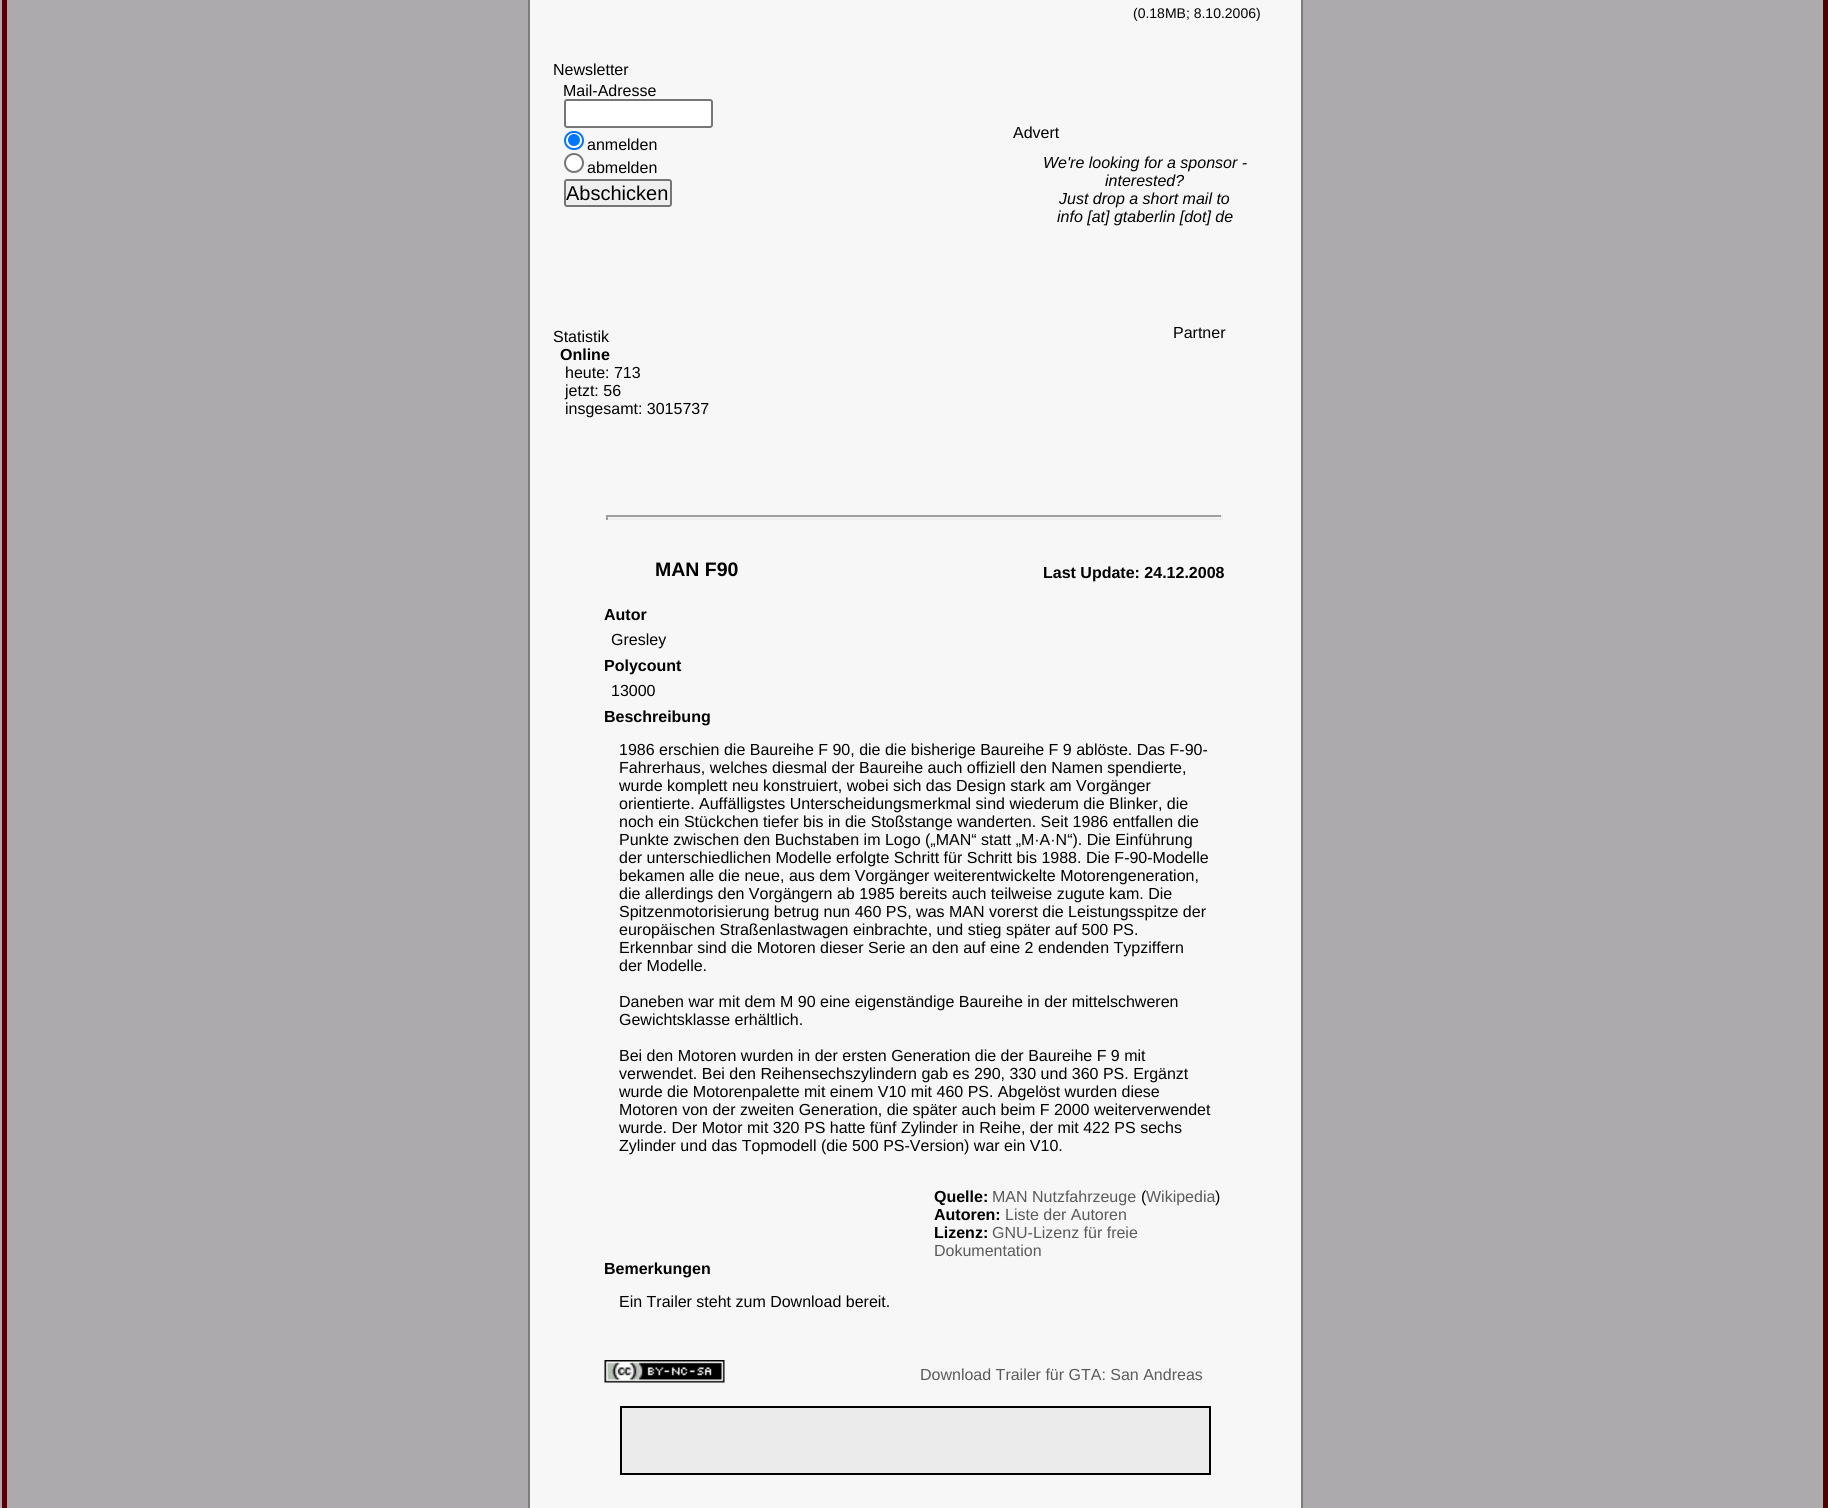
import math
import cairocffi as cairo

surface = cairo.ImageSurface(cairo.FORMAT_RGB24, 1828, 1508)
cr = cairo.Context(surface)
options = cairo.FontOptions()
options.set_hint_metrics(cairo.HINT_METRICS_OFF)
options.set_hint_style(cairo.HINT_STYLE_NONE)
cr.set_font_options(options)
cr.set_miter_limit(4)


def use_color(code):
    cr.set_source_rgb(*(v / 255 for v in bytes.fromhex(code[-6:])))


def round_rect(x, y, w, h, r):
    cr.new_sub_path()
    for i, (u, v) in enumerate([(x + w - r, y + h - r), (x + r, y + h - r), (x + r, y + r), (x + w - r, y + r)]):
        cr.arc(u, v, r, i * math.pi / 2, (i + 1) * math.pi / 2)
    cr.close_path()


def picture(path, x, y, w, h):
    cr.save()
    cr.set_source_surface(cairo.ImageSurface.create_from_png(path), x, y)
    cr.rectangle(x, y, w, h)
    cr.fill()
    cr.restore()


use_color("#adaaad")
cr.paint()
use_color("#500000")
cr.rectangle(1823, 0, 5, 1508)
cr.fill()
cr.rectangle(2, 0, 5, 1508)
cr.fill()
use_color("#f7f7f7")
cr.rectangle(530, 0, 771, 1508)
cr.fill()
cr.select_font_face("Liberation Sans")
cr.set_font_size(16)
use_color("#000000")
cr.move_to(553, 75)
cr.show_text("Newsletter")
cr.move_to(563, 96)
cr.show_text("Mail-Adresse")
use_color("#ffffff")
round_rect(565, 100, 147, 27, 2)
cr.fill_preserve()
use_color("#767676")
cr.stroke()
use_color("#ffffff")
round_rect(565, 132, 18, 17, 8.5)
cr.fill_preserve()
use_color("#0075ff")
cr.stroke()
cr.arc(574, 140, 6, 0, 2 * math.pi)
cr.fill()
use_color("#000000")
cr.move_to(587, 150)
cr.show_text("anmelden")
use_color("#ffffff")
cr.new_path()
cr.arc(574, 163, 9, 0, 2 * math.pi)
cr.fill_preserve()
use_color("#767676")
cr.stroke()
use_color("#000000")
cr.move_to(587, 173)
cr.show_text("abmelden")
use_color("#efefef")
round_rect(565, 180, 106, 26, 2)
cr.fill_preserve()
use_color("#767676")
cr.stroke()
cr.set_font_size(20)
use_color("#000000")
cr.move_to(566, 200)
cr.show_text("Abschicken")
cr.set_font_size(16)
cr.move_to(553, 342)
cr.show_text("Statistik")
cr.select_font_face("Liberation Sans", cairo.FONT_SLANT_NORMAL, cairo.FONT_WEIGHT_BOLD)
cr.move_to(560, 360)
cr.show_text("Online")
cr.select_font_face("Liberation Sans")
cr.move_to(565, 378)
cr.show_text("heute: 713")
cr.move_to(565, 396)
cr.show_text("jetzt: 56")
cr.move_to(565, 414)
cr.show_text("insgesamt: 3015737")
cr.set_font_size(14)
cr.move_to(1133, 18)
cr.show_text("(0.18MB; 8.10.2006)")
cr.set_font_size(16)
cr.move_to(1013, 138)
cr.show_text("Advert")
cr.select_font_face("Liberation Sans", cairo.FONT_SLANT_ITALIC)
cr.move_to(1043, 168)
cr.show_text("We're looking for a sponsor -")
cr.move_to(1105, 186)
cr.show_text("interested?")
cr.move_to(1059, 204)
cr.show_text("Just drop a short mail to")
cr.move_to(1057, 222)
cr.show_text("info [at] gtaberlin [dot] de")
cr.select_font_face("Liberation Sans")
cr.move_to(1173, 338)
cr.show_text("Partner")
use_color("#7b7d7b")
cr.rectangle(1301, 0, 2, 1508)
cr.fill()
cr.rectangle(528, 0, 2, 1508)
cr.fill()
use_color("#9f9f9f")
cr.rectangle(606, 515, 617, 2)
cr.fill()
use_color("#eeeeee")
cr.rectangle(1221, 515, 2, 5)
cr.fill()
cr.rectangle(606, 518, 617, 2)
cr.fill()
use_color("#9f9f9f")
cr.rectangle(606, 515, 2, 5)
cr.fill()
cr.select_font_face("Liberation Sans", cairo.FONT_SLANT_NORMAL, cairo.FONT_WEIGHT_BOLD)
cr.set_font_size(19.5)
use_color("#000000")
cr.move_to(655, 576)
cr.show_text("MAN F90")
cr.set_font_size(16)
cr.move_to(1043, 578)
cr.show_text("Last Update: 24.12.2008")
cr.move_to(604, 620)
cr.show_text("Autor")
cr.select_font_face("Liberation Sans")
cr.move_to(611, 645)
cr.show_text("Gresley")
cr.select_font_face("Liberation Sans", cairo.FONT_SLANT_NORMAL, cairo.FONT_WEIGHT_BOLD)
cr.move_to(604, 671)
cr.show_text("Polycount")
cr.select_font_face("Liberation Sans")
cr.move_to(611, 696)
cr.show_text("13000")
cr.select_font_face("Liberation Sans", cairo.FONT_SLANT_NORMAL, cairo.FONT_WEIGHT_BOLD)
cr.move_to(604, 722)
cr.show_text("Beschreibung")
cr.select_font_face("Liberation Sans")
cr.move_to(619, 755)
cr.show_text("1986 erschien die Baureihe F 90, die die bisherige Baureihe F 9 ablöste. Das F-90-")
cr.move_to(619, 773)
cr.show_text("Fahrerhaus, welches diesmal der Baureihe auch offiziell den Namen spendierte,")
cr.move_to(619, 791)
cr.show_text("wurde komplett neu konstruiert, wobei sich das Design stark am Vorgänger")
cr.move_to(619, 809)
cr.show_text("orientierte. Auffälligstes Unterscheidungsmerkmal sind wiederum die Blinker, die")
cr.move_to(619, 827)
cr.show_text("noch ein Stückchen tiefer bis in die Stoßstange wanderten. Seit 1986 entfallen die")
cr.move_to(619, 845)
cr.show_text("Punkte zwischen den Buchstaben im Logo („MAN“ statt „M·A·N“). Die Einführung")
cr.move_to(619, 863)
cr.show_text("der unterschiedlichen Modelle erfolgte Schritt für Schritt bis 1988. Die F-90-Modelle")
cr.move_to(619, 881)
cr.show_text("bekamen alle die neue, aus dem Vorgänger weiterentwickelte Motorengeneration,")
cr.move_to(619, 899)
cr.show_text("die allerdings den Vorgängern ab 1985 bereits auch teilweise zugute kam. Die")
cr.move_to(619, 917)
cr.show_text("Spitzenmotorisierung betrug nun 460 PS, was MAN vorerst die Leistungsspitze der")
cr.move_to(619, 935)
cr.show_text("europäischen Straßenlastwagen einbrachte, und stieg später auf 500 PS.")
cr.move_to(619, 953)
cr.show_text("Erkennbar sind die Motoren dieser Serie an den auf eine 2 endenden Typziffern")
cr.move_to(619, 971)
cr.show_text("der Modelle.")
cr.move_to(619, 1007)
cr.show_text("Daneben war mit dem M 90 eine eigenständige Baureihe in der mittelschweren")
cr.move_to(619, 1025)
cr.show_text("Gewichtsklasse erhältlich.")
cr.move_to(619, 1061)
cr.show_text("Bei den Motoren wurden in der ersten Generation die der Baureihe F 9 mit")
cr.move_to(619, 1079)
cr.show_text("verwendet. Bei den Reihensechszylindern gab es 290, 330 und 360 PS. Ergänzt")
cr.move_to(619, 1097)
cr.show_text("wurde die Motorenpalette mit einem V10 mit 460 PS. Abgelöst wurden diese")
cr.move_to(619, 1115)
cr.show_text("Motoren von der zweiten Generation, die später auch beim F 2000 weiterverwendet")
cr.move_to(619, 1133)
cr.show_text("wurde. Der Motor mit 320 PS hatte fünf Zylinder in Reihe, der mit 422 PS sechs")
cr.move_to(619, 1151)
cr.show_text("Zylinder und das Topmodell (die 500 PS-Version) war ein V10.")
cr.select_font_face("Liberation Sans", cairo.FONT_SLANT_NORMAL, cairo.FONT_WEIGHT_BOLD)
cr.move_to(934, 1202)
cr.show_text("Quelle:")
cr.select_font_face("Liberation Sans")
use_color("#5a5a5a")
cr.move_to(992, 1202)
cr.show_text("MAN Nutzfahrzeuge")
use_color("#000000")
cr.move_to(1141, 1202)
cr.show_text("(")
use_color("#5a5a5a")
cr.move_to(1146, 1202)
cr.show_text("Wikipedia")
use_color("#000000")
cr.move_to(1215, 1202)
cr.show_text(")")
cr.select_font_face("Liberation Sans", cairo.FONT_SLANT_NORMAL, cairo.FONT_WEIGHT_BOLD)
cr.move_to(934, 1220)
cr.show_text("Autoren:")
cr.select_font_face("Liberation Sans")
use_color("#5a5a5a")
cr.move_to(1005, 1220)
cr.show_text("Liste der Autoren")
cr.select_font_face("Liberation Sans", cairo.FONT_SLANT_NORMAL, cairo.FONT_WEIGHT_BOLD)
use_color("#000000")
cr.move_to(934, 1238)
cr.show_text("Lizenz:")
cr.select_font_face("Liberation Sans")
use_color("#5a5a5a")
cr.move_to(992, 1238)
cr.show_text("GNU-Lizenz für freie")
cr.move_to(934, 1256)
cr.show_text("Dokumentation")
cr.select_font_face("Liberation Sans", cairo.FONT_SLANT_NORMAL, cairo.FONT_WEIGHT_BOLD)
use_color("#000000")
cr.move_to(604, 1274)
cr.show_text("Bemerkungen")
cr.select_font_face("Liberation Sans")
cr.move_to(619, 1307)
cr.show_text("Ein Trailer steht zum Download bereit.")
picture("img1.png", 604, 1360, 121, 23)
use_color("#5a5a5a")
cr.move_to(920, 1380)
cr.show_text("Download Trailer für GTA: San Andreas")
use_color("#ebebeb")
cr.rectangle(621, 1407, 589, 67)
cr.fill_preserve()
use_color("#000000")
cr.stroke()
surface.write_to_png("result.png")
